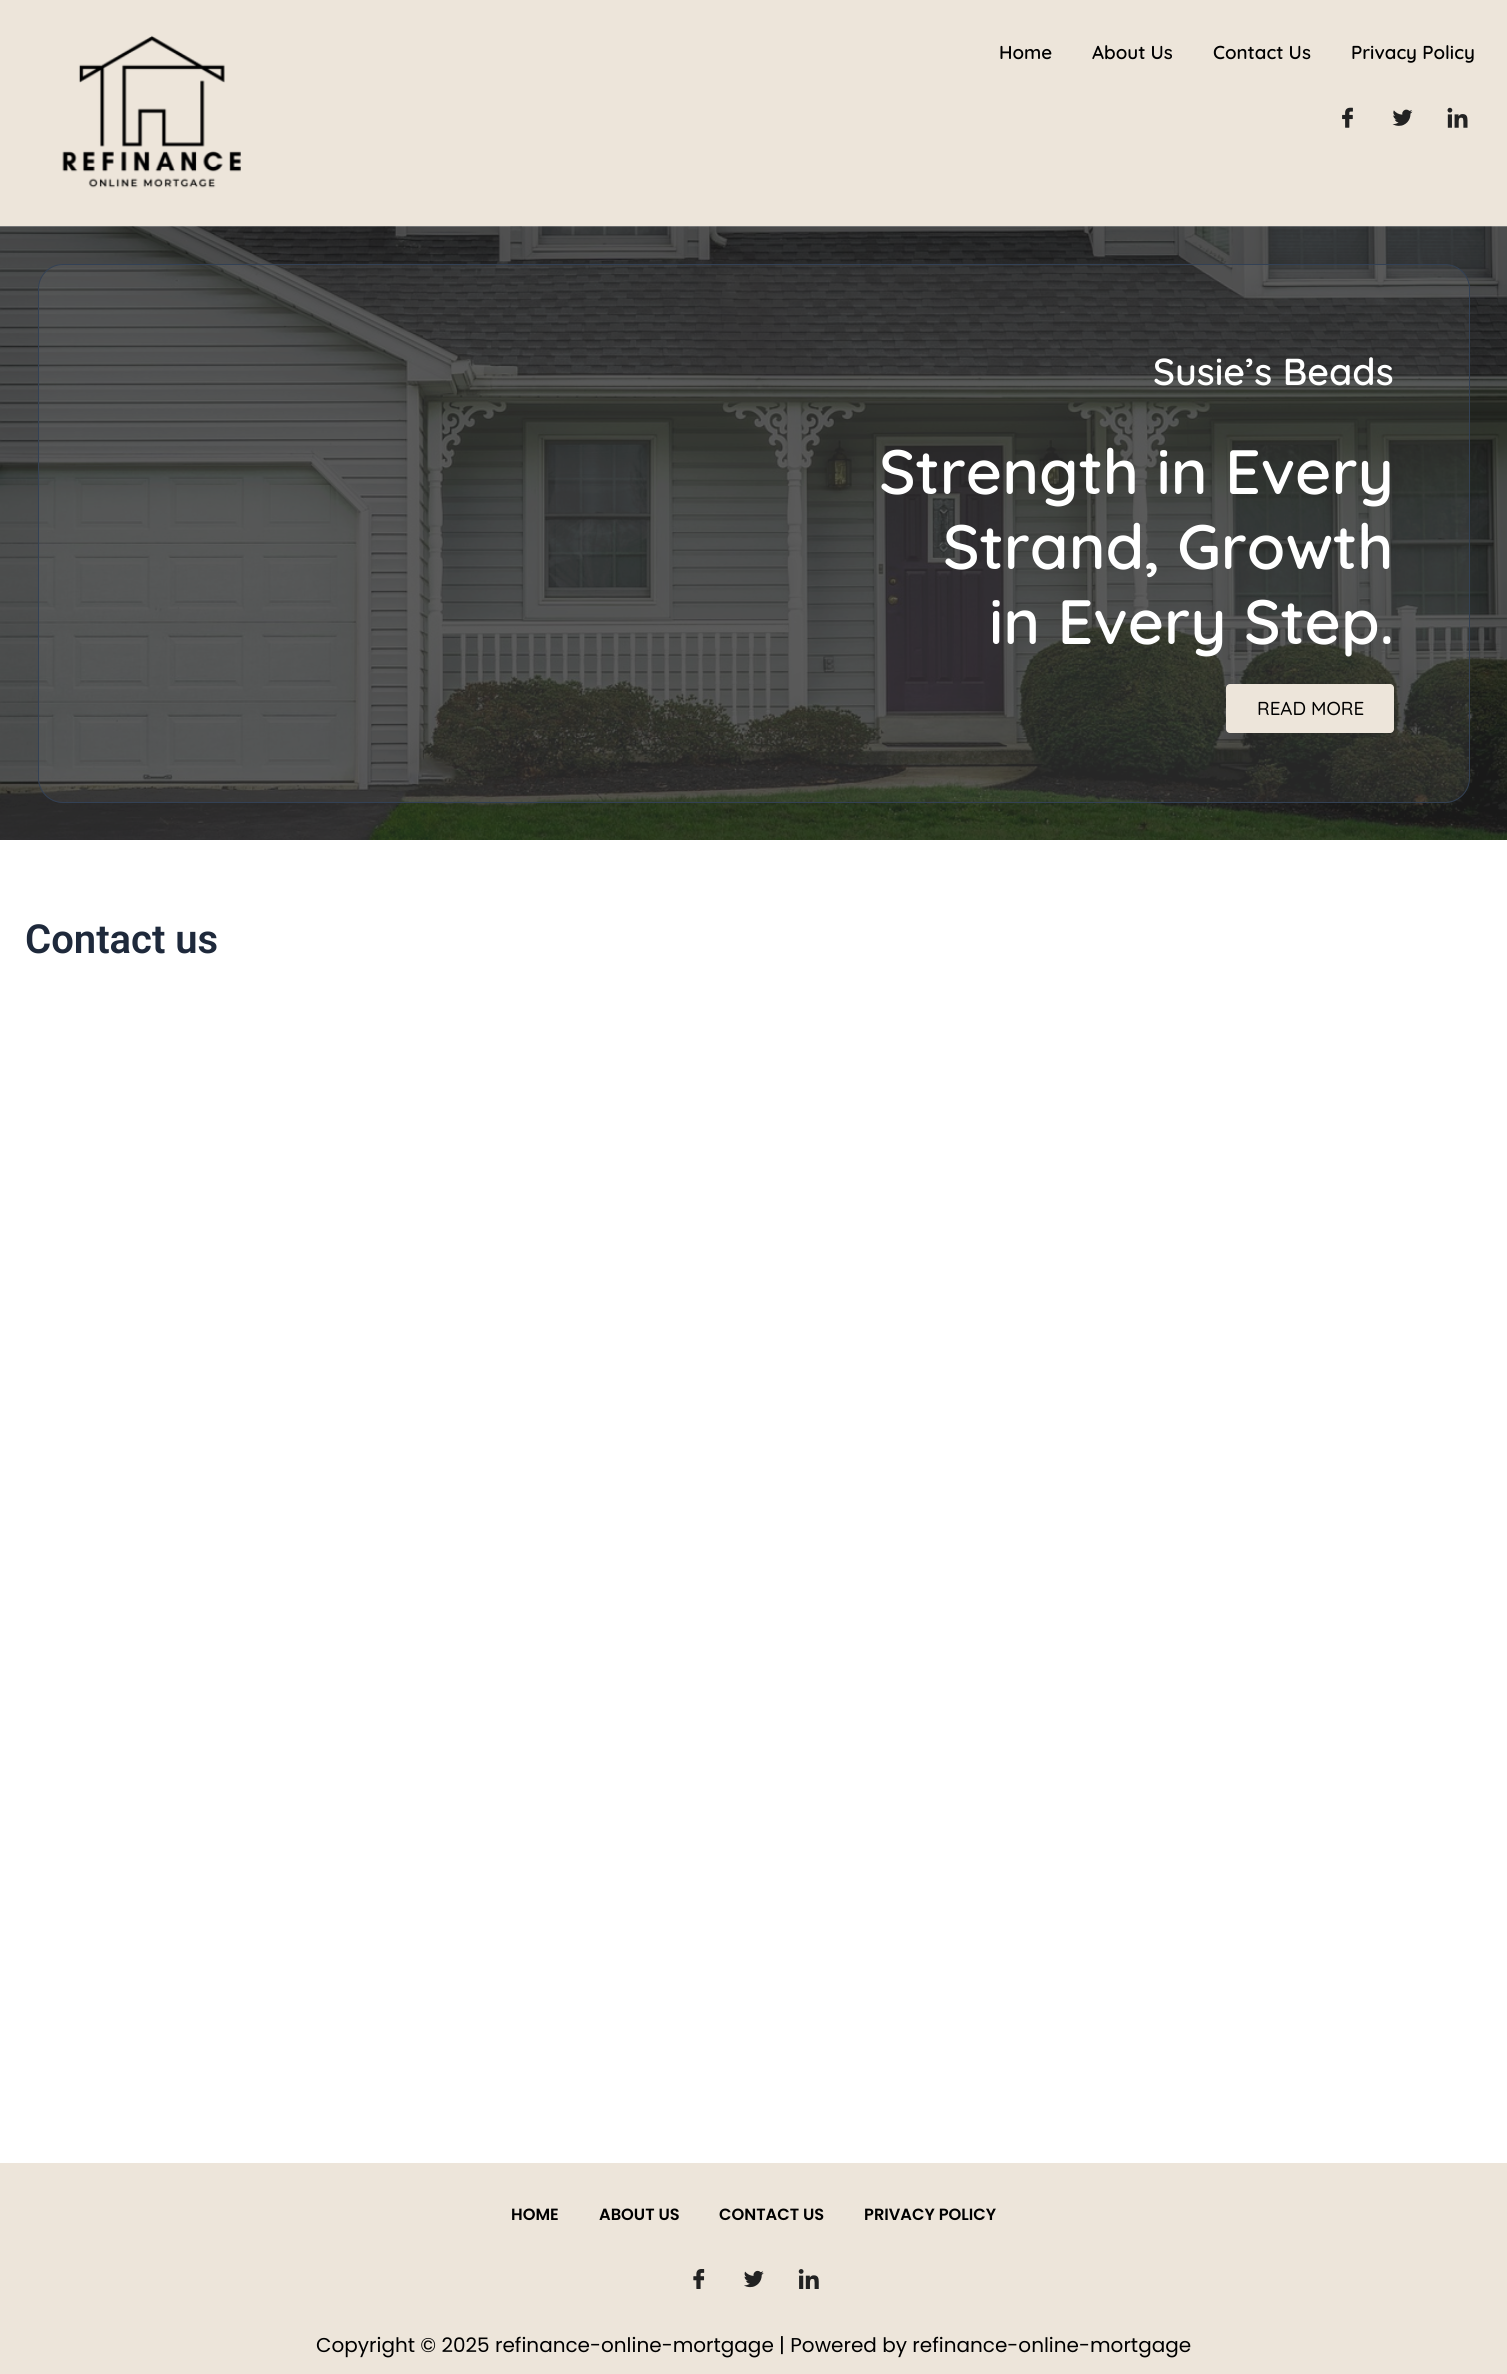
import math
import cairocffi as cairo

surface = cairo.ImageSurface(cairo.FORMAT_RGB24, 1507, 2374)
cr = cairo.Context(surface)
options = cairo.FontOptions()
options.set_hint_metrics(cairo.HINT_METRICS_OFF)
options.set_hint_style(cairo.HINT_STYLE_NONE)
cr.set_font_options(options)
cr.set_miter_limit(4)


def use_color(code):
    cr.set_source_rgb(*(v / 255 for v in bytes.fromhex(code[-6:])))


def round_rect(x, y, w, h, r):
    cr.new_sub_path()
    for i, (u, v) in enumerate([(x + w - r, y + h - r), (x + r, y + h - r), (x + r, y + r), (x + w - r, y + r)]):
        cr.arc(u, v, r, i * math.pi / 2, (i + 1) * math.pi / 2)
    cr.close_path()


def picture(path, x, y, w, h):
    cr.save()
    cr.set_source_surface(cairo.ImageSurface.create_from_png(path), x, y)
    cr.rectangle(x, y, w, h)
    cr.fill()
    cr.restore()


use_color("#ffffff")
cr.paint()
use_color("#ede5da")
cr.rectangle(0, 0, 1507, 226)
cr.fill()
picture("img1.png", 62, 35, 179, 153)
cr.select_font_face("Quicksand SemiBold")
cr.set_font_size(18.75)
use_color("#000000")
cr.move_to(999, 59)
cr.show_text("Home")
cr.move_to(1092, 59)
cr.show_text("About Us")
cr.move_to(1213, 59)
cr.show_text("Contact Us")
cr.move_to(1351, 59)
cr.show_text("Privacy Policy")
picture("img2.png", 1342, 107, 11, 21)
picture("img3.png", 1392, 109, 21, 17)
picture("img4.png", 1447, 107, 21, 21)
picture("img5.png", 0, 226, 1507, 614)
cr.set_source_rgba(0.753, 0.753, 0.753, 0.08)
round_rect(38.5, 264.5, 1431, 538, 24.5)
cr.fill_preserve()
use_color("#334155")
cr.set_line_width(1)
cr.stroke()
cr.set_font_size(37.5)
use_color("#ffffff")
cr.move_to(1153, 385)
cr.show_text("Susie’s Beads")
cr.set_font_size(62.5)
cr.move_to(879, 494)
cr.show_text("Strength in Every")
cr.move_to(943, 569)
cr.show_text("Strand, Growth")
cr.move_to(989, 644)
cr.show_text("in Every Step.")
use_color("#ede5da")
round_rect(1226, 684, 168, 49, 4)
cr.fill()
cr.select_font_face("Quicksand Medium")
cr.set_font_size(18.75)
use_color("#000000")
cr.move_to(1257, 715)
cr.show_text("READ MORE")
cr.select_font_face("Roboto SemiBold")
cr.set_font_size(40)
use_color("#1e293b")
cr.move_to(25, 953)
cr.show_text("Contact us")
use_color("#ede5da")
cr.rectangle(0, 2163, 1507, 211)
cr.fill()
cr.select_font_face("Poppins SemiBold")
cr.set_font_size(16.25)
use_color("#000000")
cr.move_to(511, 2220)
cr.show_text("HOME")
cr.move_to(599, 2220)
cr.show_text("ABOUT US")
cr.move_to(719, 2220)
cr.show_text("CONTACT US")
cr.move_to(864, 2220)
cr.show_text("PRIVACY POLICY")
picture("img6.png", 693, 2269, 12, 20)
picture("img7.png", 744, 2270, 20, 18)
picture("img8.png", 798, 2269, 21, 20)
cr.select_font_face("Poppins")
cr.set_font_size(20)
cr.move_to(316, 2352)
cr.show_text("Copyright © 2025 refinance-online-mortgage | Powered by refinance-online-mortgage")
surface.write_to_png("result.png")
